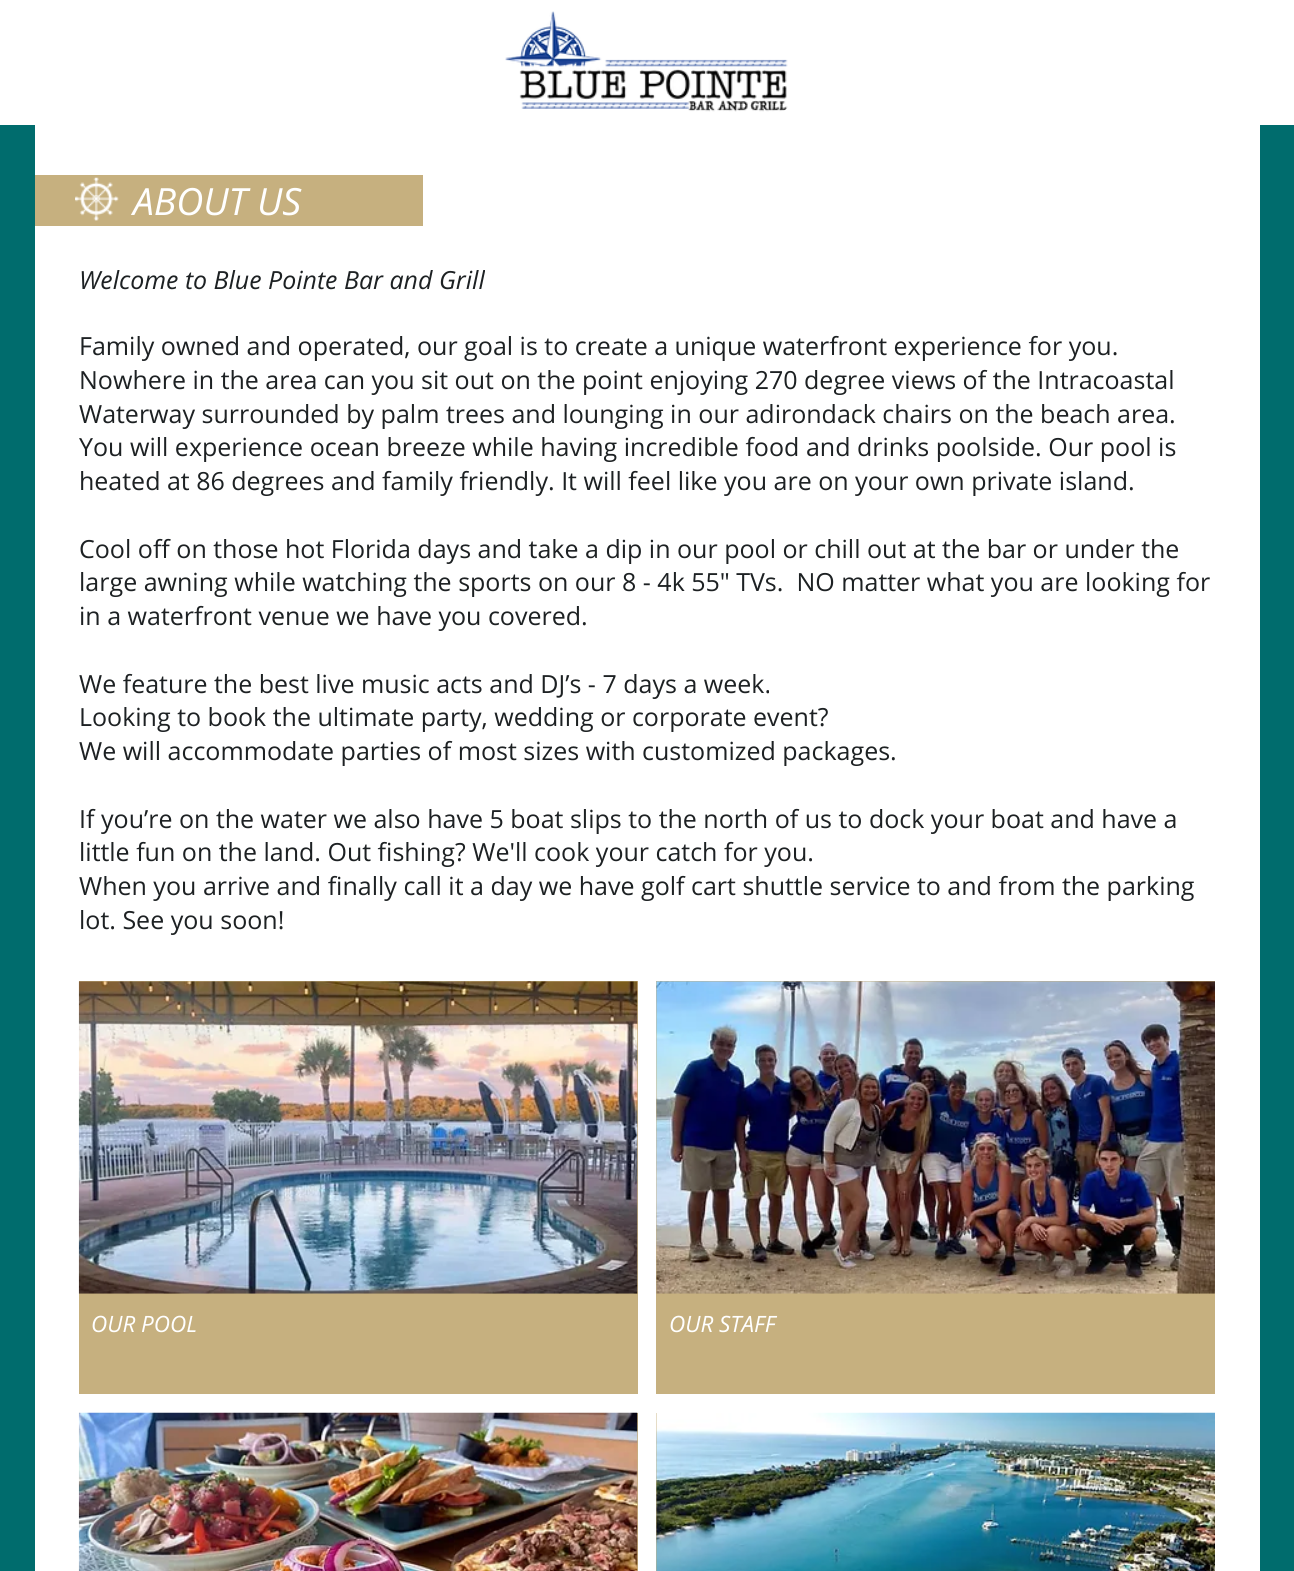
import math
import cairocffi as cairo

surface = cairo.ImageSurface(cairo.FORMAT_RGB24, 1294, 1571)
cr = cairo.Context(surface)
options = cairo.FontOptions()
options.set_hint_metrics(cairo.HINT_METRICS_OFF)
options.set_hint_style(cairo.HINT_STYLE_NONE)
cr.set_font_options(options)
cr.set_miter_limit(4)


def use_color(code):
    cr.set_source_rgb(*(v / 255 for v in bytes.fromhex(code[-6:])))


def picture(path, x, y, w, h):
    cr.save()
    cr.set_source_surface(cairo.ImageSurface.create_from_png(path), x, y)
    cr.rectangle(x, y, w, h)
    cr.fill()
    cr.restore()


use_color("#006c6d")
cr.paint()
use_color("#ffffff")
cr.rectangle(0, 0, 1294, 125)
cr.fill()
picture("img1.png", 505, 11, 283, 101)
cr.rectangle(35, 125, 1225, 1446)
cr.fill()
use_color("#c6b07f")
cr.rectangle(35, 175, 388, 51)
cr.fill()
picture("img2.png", 75, 177, 44, 44)
cr.select_font_face("Open Sans", cairo.FONT_SLANT_ITALIC)
cr.set_font_size(37.5)
use_color("#ffffff")
cr.move_to(133, 215)
cr.show_text("ABOUT US")
cr.set_font_size(25)
use_color("#1d2123")
cr.move_to(79, 289)
cr.show_text("Welcome to Blue Pointe Bar and Grill")
cr.select_font_face("Open Sans")
cr.move_to(79, 355)
cr.show_text("Family owned and operated, our goal is to create a unique waterfront experience for you.")
cr.move_to(79, 389)
cr.show_text("Nowhere in the area can you sit out on the point enjoying 270 degree views of the Intracoastal")
cr.move_to(79, 423)
cr.show_text("Waterway surrounded by palm trees and lounging in our adirondack chairs on the beach area.")
cr.move_to(79, 456)
cr.show_text("You will experience ocean breeze while having incredible food and drinks poolside. Our pool is")
cr.move_to(79, 490)
cr.show_text("heated at 86 degrees and family friendly. It will feel like you are on your own private island.")
cr.move_to(79, 558)
cr.show_text("Cool off on those hot Florida days and take a dip in our pool or chill out at the bar or under the")
cr.move_to(79, 591)
cr.show_text("large awning while watching the sports on our 8 - 4k 55″ TVs.  NO matter what you are looking for")
cr.move_to(79, 625)
cr.show_text("in a waterfront venue we have you covered.")
cr.move_to(79, 693)
cr.show_text("We feature the best live music acts and DJ’s - 7 days a week.")
cr.move_to(79, 726)
cr.show_text("Looking to book the ultimate party, wedding or corporate event?")
cr.move_to(79, 760)
cr.show_text("We will accommodate parties of most sizes with customized packages.")
cr.move_to(79, 828)
cr.show_text("If you’re on the water we also have 5 boat slips to the north of us to dock your boat and have a")
cr.move_to(79, 861)
cr.show_text("little fun on the land. Out fishing? We'll cook your catch for you.")
cr.move_to(79, 895)
cr.show_text("When you arrive and finally call it a day we have golf cart shuttle service to and from the parking")
cr.move_to(79, 929)
cr.show_text("lot. See you soon!")
use_color("#c6b07f")
cr.rectangle(79, 981, 559, 413)
cr.fill()
picture("img3.png", 78, 981, 560, 313)
cr.select_font_face("Open Sans", cairo.FONT_SLANT_ITALIC)
cr.set_font_size(22.5)
use_color("#ffffff")
cr.move_to(91, 1332)
cr.show_text("OUR POOL")
use_color("#c6b07f")
cr.rectangle(656, 981, 559, 413)
cr.fill()
picture("img4.png", 656, 981, 559, 313)
use_color("#ffffff")
cr.move_to(669, 1332)
cr.show_text("OUR STAFF")
use_color("#c6b07f")
cr.rectangle(637, 1413, 1, 158)
cr.fill()
picture("img5.png", 78, 1412, 560, 159)
cr.rectangle(656, 1413, 1, 158)
cr.fill()
picture("img6.png", 656, 1412, 559, 159)
surface.write_to_png("result.png")
